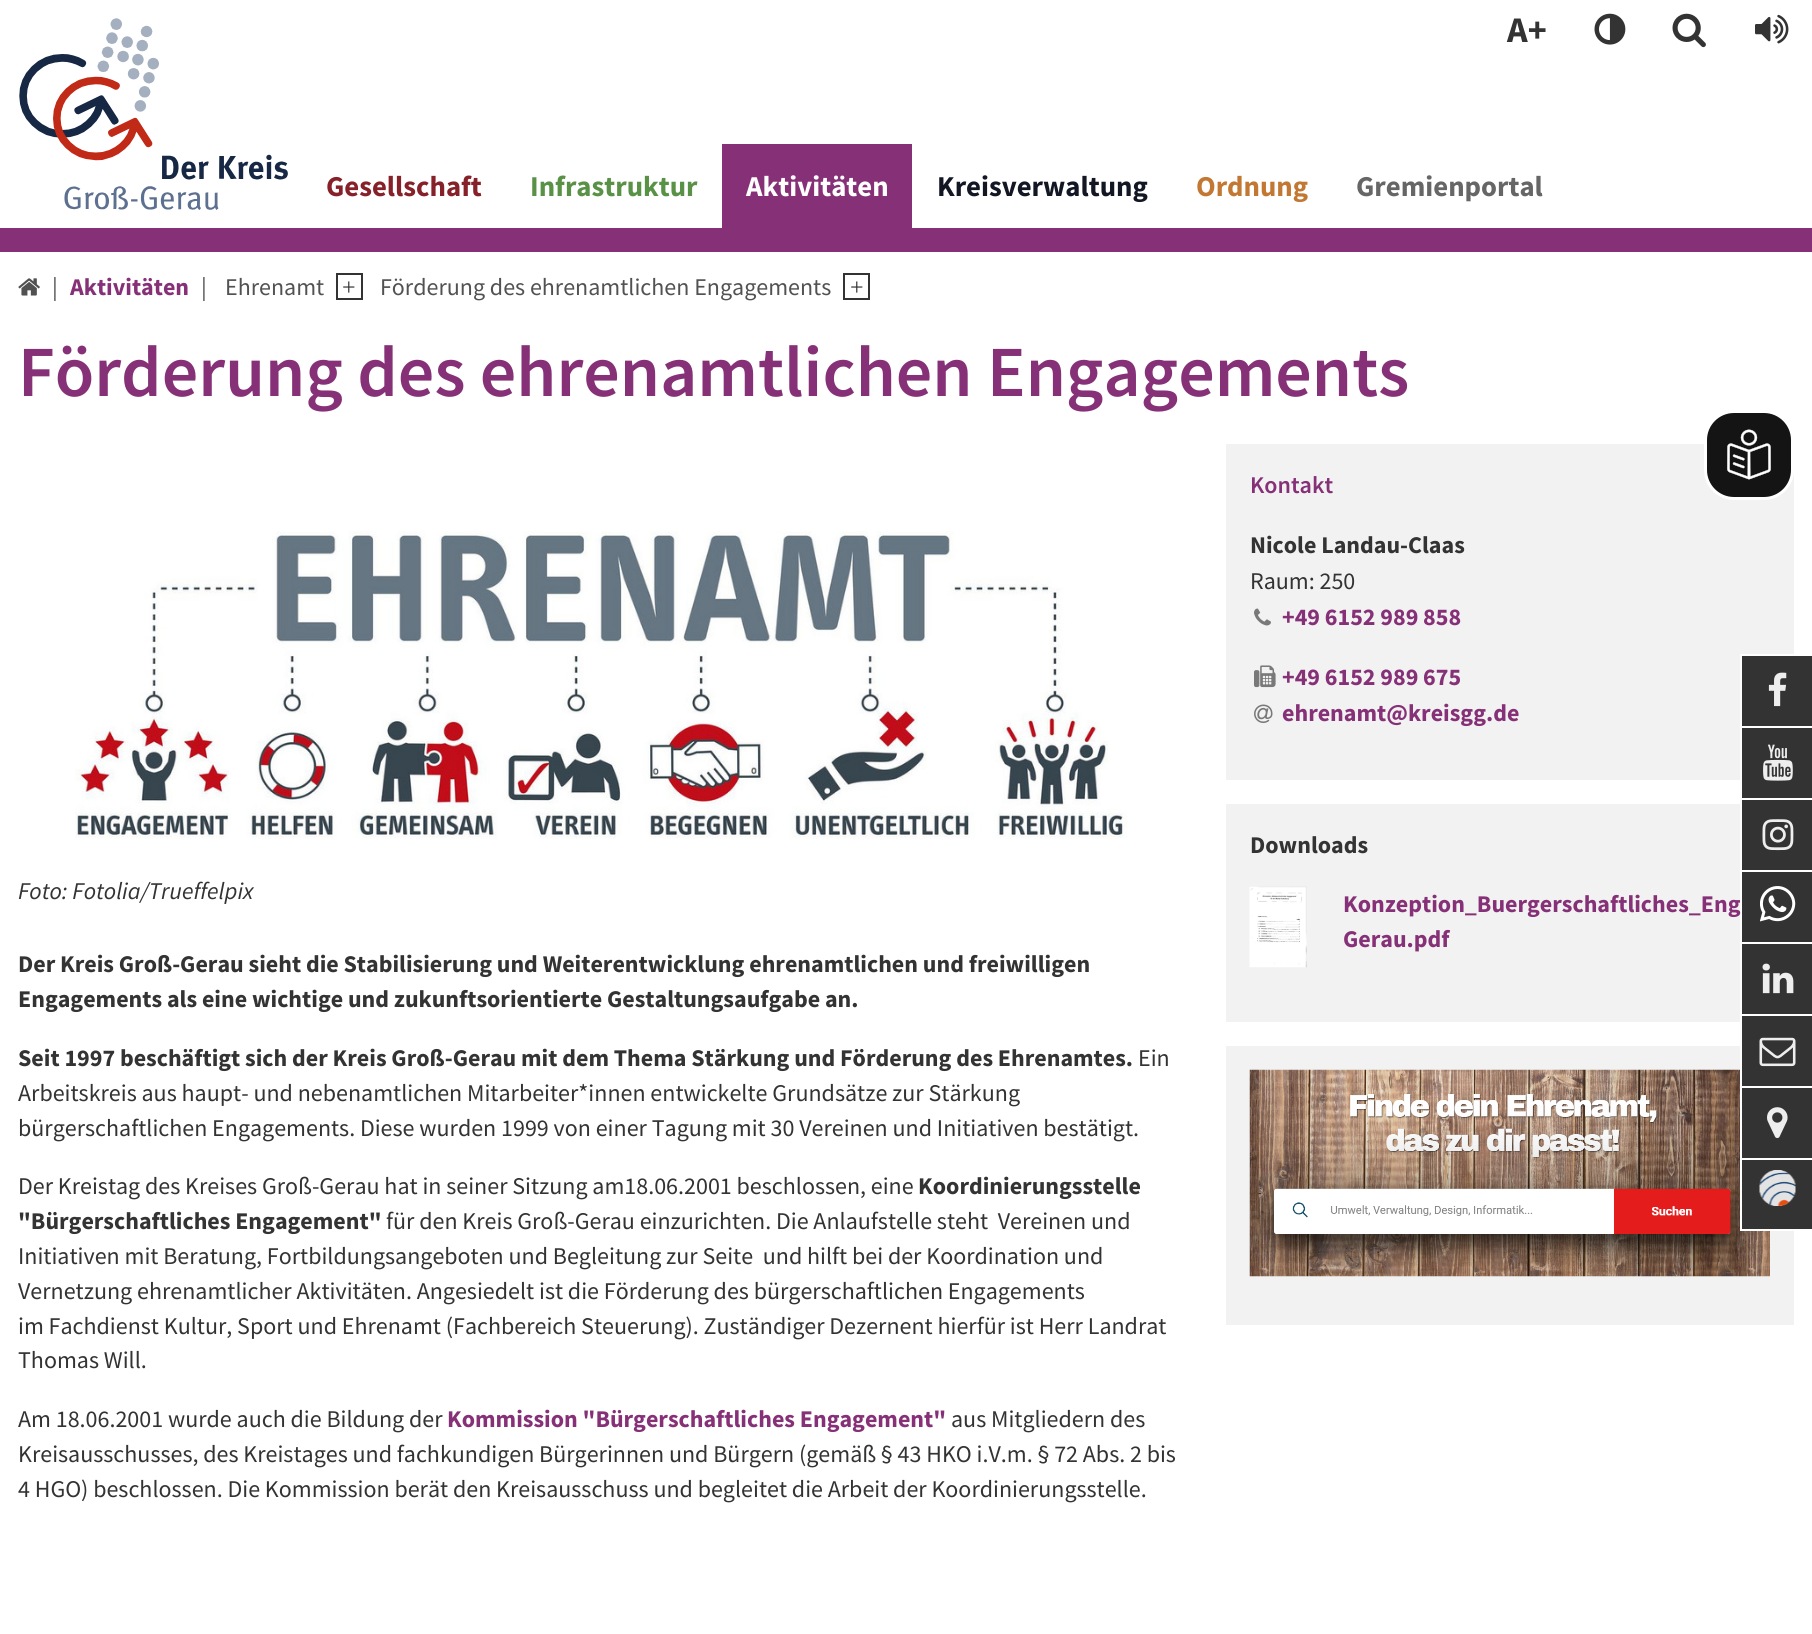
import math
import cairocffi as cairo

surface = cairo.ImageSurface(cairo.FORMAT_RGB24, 1812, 1634)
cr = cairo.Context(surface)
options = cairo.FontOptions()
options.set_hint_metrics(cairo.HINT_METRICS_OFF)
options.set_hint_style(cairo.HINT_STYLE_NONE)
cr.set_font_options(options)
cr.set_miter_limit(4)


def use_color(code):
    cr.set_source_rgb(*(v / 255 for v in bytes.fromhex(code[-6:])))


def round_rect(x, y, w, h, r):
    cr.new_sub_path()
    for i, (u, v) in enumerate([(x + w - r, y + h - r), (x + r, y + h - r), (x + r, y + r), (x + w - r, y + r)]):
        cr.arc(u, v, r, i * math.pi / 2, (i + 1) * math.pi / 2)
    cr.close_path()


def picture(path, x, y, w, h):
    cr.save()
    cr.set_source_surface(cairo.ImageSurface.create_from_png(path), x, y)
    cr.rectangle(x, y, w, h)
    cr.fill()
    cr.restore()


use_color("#ffffff")
cr.paint()
picture("img1.png", 19, 18, 269, 192)
cr.select_font_face("Source Sans Pro", cairo.FONT_SLANT_NORMAL, cairo.FONT_WEIGHT_BOLD)
cr.set_font_size(36)
use_color("#333333")
cr.move_to(1507, 42)
cr.show_text("A+")
picture("img2.png", 1594, 13, 32, 32)
picture("img3.png", 1672, 13, 34, 35)
picture("img4.png", 1755, 14, 34, 30)
cr.set_font_size(28.75)
use_color("#872129")
cr.move_to(326, 196)
cr.show_text("Gesellschaft")
use_color("#599247")
cr.move_to(530, 196)
cr.show_text("Infrastruktur")
use_color("#863177")
cr.rectangle(722, 144, 190, 84)
cr.fill()
use_color("#ffffff")
cr.move_to(746, 196)
cr.show_text("Aktivitäten")
use_color("#131724")
cr.move_to(937, 196)
cr.show_text("Kreisverwaltung")
use_color("#c27832")
cr.move_to(1196, 196)
cr.show_text("Ordnung")
use_color("#666666")
cr.move_to(1356, 196)
cr.show_text("Gremienportal")
use_color("#f2f2f2")
cr.rectangle(1226, 444, 568, 336)
cr.fill()
use_color("#151414")
round_rect(1705.5, 411.5, 87, 87, 28.5)
cr.fill_preserve()
use_color("#ffffff")
cr.set_line_width(3)
cr.stroke()
picture("img5.png", 1727, 429, 44, 51)
use_color("#863177")
cr.rectangle(0, 228, 1812, 24)
cr.fill()
picture("img6.png", 18, 278, 22, 18)
cr.select_font_face("Source Sans Pro")
cr.set_font_size(24)
use_color("#525252")
cr.move_to(52, 295)
cr.show_text("|")
cr.select_font_face("Source Sans Pro", cairo.FONT_SLANT_NORMAL, cairo.FONT_WEIGHT_BOLD)
use_color("#863177")
cr.move_to(70, 295)
cr.show_text("Aktivitäten")
cr.select_font_face("Source Sans Pro")
use_color("#525252")
cr.move_to(201, 295)
cr.show_text("|")
cr.move_to(225, 295)
cr.show_text("Ehrenamt")
cr.rectangle(337, 274, 25, 25)
use_color("#333333")
cr.set_line_width(2)
cr.stroke()
cr.select_font_face("Liberation Serif")
cr.move_to(342, 295)
cr.show_text("+")
cr.select_font_face("Source Sans Pro")
use_color("#525252")
cr.move_to(380, 295)
cr.show_text("Förderung des ehrenamtlichen Engagements")
cr.rectangle(844, 274, 25, 25)
use_color("#333333")
cr.stroke()
cr.select_font_face("Liberation Serif")
cr.move_to(850, 295)
cr.show_text("+")
cr.select_font_face("Source Sans Pro SemiBold")
cr.set_font_size(72)
use_color("#863177")
cr.move_to(18, 396)
cr.show_text("Förderung des ehrenamtlichen Engagements")
cr.set_font_size(24)
cr.move_to(1250, 493)
cr.show_text("Kontakt")
cr.select_font_face("Source Sans Pro", cairo.FONT_SLANT_NORMAL, cairo.FONT_WEIGHT_BOLD)
use_color("#333333")
cr.move_to(1250, 553)
cr.show_text("Nicole Landau-Claas")
cr.select_font_face("Source Sans Pro")
cr.move_to(1250, 589)
cr.show_text("Raum: 250")
picture("img7.png", 1254, 608, 17, 18)
cr.select_font_face("Source Sans Pro", cairo.FONT_SLANT_NORMAL, cairo.FONT_WEIGHT_BOLD)
use_color("#863177")
cr.move_to(1282, 625)
cr.show_text("+49 6152 989 858")
picture("img8.png", 1254, 665, 22, 23)
cr.move_to(1282, 685)
cr.show_text("+49 6152 989 675")
picture("img9.png", 1254, 704, 19, 19)
cr.move_to(1282, 721)
cr.show_text("ehrenamt@kreisgg.de")
use_color("#f2f2f2")
cr.rectangle(1226, 804, 514, 218)
cr.fill()
use_color("#333333")
cr.move_to(1250, 853)
cr.show_text("Downloads")
picture("img10.png", 1249, 886, 58, 82)
use_color("#863177")
cr.move_to(1343, 912)
cr.show_text("Konzeption_Buergerschaftliches_Eng")
cr.move_to(1343, 947)
cr.show_text("Gerau.pdf")
use_color("#f2f2f2")
cr.rectangle(1226, 1046, 568, 279)
cr.fill()
picture("img11.png", 1249, 1069, 521, 208)
picture("img12.png", 75, 531, 1052, 308)
cr.select_font_face("Source Sans Pro", cairo.FONT_SLANT_ITALIC)
use_color("#333333")
cr.move_to(18, 899)
cr.show_text("Foto: Fotolia/Trueffelpix")
cr.select_font_face("Source Sans Pro", cairo.FONT_SLANT_NORMAL, cairo.FONT_WEIGHT_BOLD)
cr.move_to(18, 972)
cr.show_text("Der Kreis Groß-Gerau sieht die Stabilisierung und Weiterentwicklung ehrenamtlichen und freiwilligen")
cr.move_to(18, 1007)
cr.show_text("Engagements als eine wichtige und zukunftsorientierte Gestaltungsaufgabe an.")
cr.move_to(18, 1066)
cr.show_text("Seit 1997 beschäftigt sich der Kreis Groß-Gerau mit dem Thema Stärkung und Förderung des Ehrenamtes.")
cr.select_font_face("Source Sans Pro")
cr.move_to(1138, 1066)
cr.show_text("Ein")
cr.move_to(18, 1101)
cr.show_text("Arbeitskreis aus haupt- und nebenamtlichen Mitarbeiter*innen entwickelte Grundsätze zur Stärkung")
cr.move_to(18, 1136)
cr.show_text("bürgerschaftlichen Engagements. Diese wurden 1999 von einer Tagung mit 30 Vereinen und Initiativen bestätigt.")
cr.move_to(18, 1194)
cr.show_text("Der Kreistag des Kreises Groß-Gerau hat in seiner Sitzung am18.06.2001 beschlossen, eine")
cr.select_font_face("Source Sans Pro", cairo.FONT_SLANT_NORMAL, cairo.FONT_WEIGHT_BOLD)
cr.move_to(918, 1194)
cr.show_text("Koordinierungsstelle")
cr.move_to(18, 1229)
cr.show_text("\"Bürgerschaftliches Engagement\"")
cr.select_font_face("Source Sans Pro")
cr.move_to(386, 1229)
cr.show_text("für den Kreis Groß-Gerau einzurichten. Die Anlaufstelle steht  Vereinen und")
cr.move_to(18, 1264)
cr.show_text("Initiativen mit Beratung, Fortbildungsangeboten und Begleitung zur Seite  und hilft bei der Koordination und")
cr.move_to(18, 1299)
cr.show_text("Vernetzung ehrenamtlicher Aktivitäten. Angesiedelt ist die Förderung des bürgerschaftlichen Engagements")
cr.move_to(18, 1334)
cr.show_text("im Fachdienst Kultur, Sport und Ehrenamt (Fachbereich Steuerung). Zuständiger Dezernent hierfür ist Herr Landrat")
cr.move_to(18, 1368)
cr.show_text("Thomas Will.")
cr.move_to(18, 1427)
cr.show_text("Am 18.06.2001 wurde auch die Bildung der")
cr.select_font_face("Source Sans Pro", cairo.FONT_SLANT_NORMAL, cairo.FONT_WEIGHT_BOLD)
use_color("#863177")
cr.move_to(447, 1427)
cr.show_text("Kommission \"Bürgerschaftliches Engagement\"")
cr.select_font_face("Source Sans Pro")
use_color("#333333")
cr.move_to(951, 1427)
cr.show_text("aus Mitgliedern des")
cr.move_to(18, 1462)
cr.show_text("Kreisausschusses, des Kreistages und fachkundigen Bürgerinnen und Bürgern (gemäß § 43 HKO i.V.m. § 72 Abs. 2 bis")
cr.move_to(18, 1497)
cr.show_text("4 HGO) beschlossen. Die Kommission berät den Kreisausschuss und begleitet die Arbeit der Koordinierungsstelle.")
cr.rectangle(1742, 656, 70, 70)
cr.fill()
use_color("#ffffff")
cr.rectangle(1740, 654, 54, 2)
cr.fill()
cr.rectangle(1740, 654, 2, 72)
cr.fill()
picture("img13.png", 1768, 672, 19, 35)
use_color("#333333")
cr.rectangle(1742, 728, 70, 70)
cr.fill()
use_color("#ffffff")
cr.rectangle(1740, 726, 54, 2)
cr.fill()
cr.rectangle(1740, 726, 2, 54)
cr.fill()
picture("img14.png", 1763, 744, 30, 37)
use_color("#333333")
cr.rectangle(1742, 800, 70, 70)
cr.fill()
picture("img15.png", 1762, 819, 32, 32)
cr.rectangle(1742, 872, 70, 70)
cr.fill()
picture("img16.png", 1760, 886, 36, 36)
cr.rectangle(1742, 944, 70, 70)
cr.fill()
picture("img17.png", 1762, 963, 32, 31)
cr.rectangle(1742, 1016, 70, 70)
cr.fill()
use_color("#ffffff")
cr.rectangle(1740, 1046, 2, 40)
cr.fill()
picture("img18.png", 1759, 1037, 37, 30)
use_color("#333333")
cr.rectangle(1742, 1088, 70, 70)
cr.fill()
use_color("#ffffff")
cr.rectangle(1740, 1086, 54, 2)
cr.fill()
cr.rectangle(1740, 1086, 2, 72)
cr.fill()
picture("img19.png", 1767, 1107, 21, 32)
use_color("#333333")
cr.rectangle(1742, 1160, 70, 69)
cr.fill()
use_color("#ffffff")
cr.rectangle(1740, 1158, 54, 2)
cr.fill()
cr.rectangle(1740, 1229, 54, 2)
cr.fill()
cr.rectangle(1740, 1158, 2, 72)
cr.fill()
picture("img20.png", 1759, 1170, 37, 36)
surface.write_to_png("result.png")
